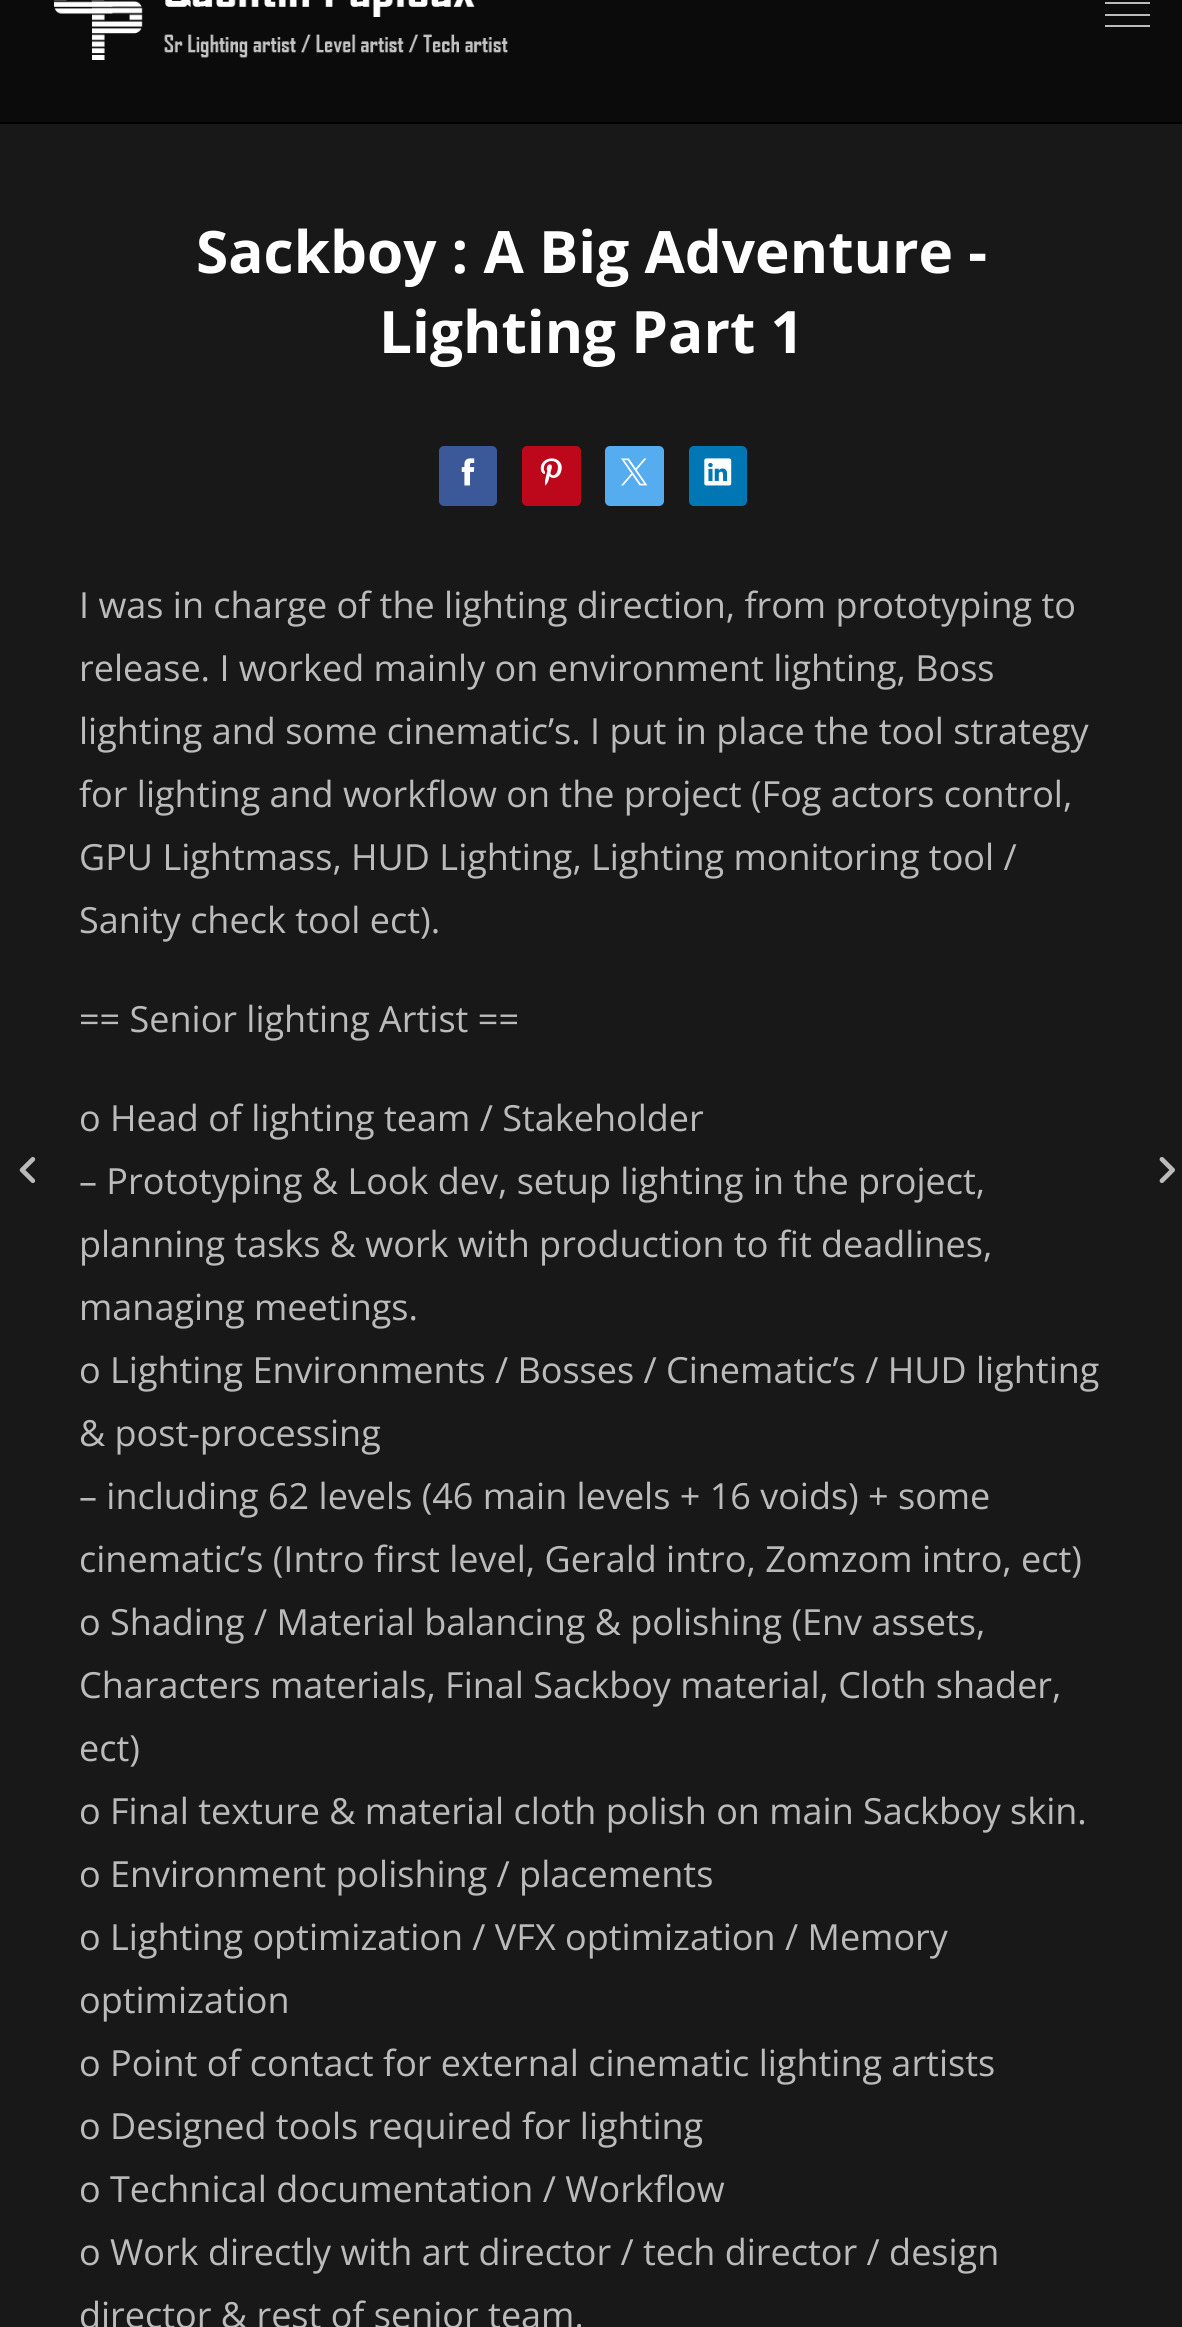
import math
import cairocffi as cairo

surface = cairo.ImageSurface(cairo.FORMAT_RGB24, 1182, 2327)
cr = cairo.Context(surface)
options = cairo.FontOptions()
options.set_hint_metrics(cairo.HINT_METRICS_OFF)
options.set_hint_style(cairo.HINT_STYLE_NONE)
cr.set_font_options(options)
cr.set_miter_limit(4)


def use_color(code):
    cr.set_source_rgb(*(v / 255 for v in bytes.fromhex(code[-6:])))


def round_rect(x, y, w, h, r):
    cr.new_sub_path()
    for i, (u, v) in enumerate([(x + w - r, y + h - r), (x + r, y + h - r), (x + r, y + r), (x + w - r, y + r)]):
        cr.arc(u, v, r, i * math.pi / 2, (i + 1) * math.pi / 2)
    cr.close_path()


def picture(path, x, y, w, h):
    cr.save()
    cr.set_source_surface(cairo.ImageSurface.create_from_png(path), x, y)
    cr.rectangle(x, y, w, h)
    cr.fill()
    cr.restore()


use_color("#181818")
cr.paint()
use_color("#0b0b0b")
cr.rectangle(0, 0, 1182, 122)
cr.fill()
use_color("#000000")
cr.rectangle(0, 122, 1182, 2)
cr.fill()
picture("img1.png", 54, 0, 454, 60)
use_color("#bbbbbb")
cr.rectangle(1105, 2, 45, 2)
cr.fill()
cr.rectangle(1105, 14, 45, 2)
cr.fill()
cr.rectangle(1105, 25, 45, 2)
cr.fill()
picture("img2.png", 19, 1156, 17, 28)
cr.select_font_face("Open Sans", cairo.FONT_SLANT_NORMAL, cairo.FONT_WEIGHT_BOLD)
cr.set_font_size(58.5)
use_color("#ffffff")
cr.move_to(196, 273)
cr.show_text("Sackboy : A Big Adventure -")
cr.move_to(379, 353)
cr.show_text("Lighting Part 1")
use_color("#3b5999")
round_rect(439, 446, 58, 60, 5)
cr.fill()
picture("img3.png", 461, 458, 14, 28)
use_color("#bd081c")
round_rect(522, 446, 59, 60, 5)
cr.fill()
picture("img4.png", 540, 458, 22, 28)
use_color("#55acee")
round_rect(605, 446, 59, 60, 5)
cr.fill()
picture("img5.png", 621, 458, 27, 28)
use_color("#0077b5")
round_rect(689, 446, 58, 60, 5)
cr.fill()
picture("img6.png", 704, 458, 28, 28)
cr.select_font_face("Open Sans")
cr.set_font_size(36)
use_color("#bbbbbb")
cr.move_to(79, 618)
cr.show_text("I was in charge of the lighting direction, from prototyping to")
cr.move_to(79, 681)
cr.show_text("release. I worked mainly on environment lighting, Boss")
cr.move_to(79, 744)
cr.show_text("lighting and some cinematic’s. I put in place the tool strategy")
cr.move_to(79, 807)
cr.show_text("for lighting and workflow on the project (Fog actors control,")
cr.move_to(79, 870)
cr.show_text("GPU Lightmass, HUD Lighting, Lighting monitoring tool /")
cr.move_to(79, 933)
cr.show_text("Sanity check tool ect).")
cr.move_to(79, 1032)
cr.show_text("== Senior lighting Artist ==")
cr.move_to(79, 1131)
cr.show_text("o Head of lighting team / Stakeholder")
cr.move_to(79, 1194)
cr.show_text("– Prototyping & Look dev, setup lighting in the project,")
cr.move_to(79, 1257)
cr.show_text("planning tasks & work with production to fit deadlines,")
cr.move_to(79, 1320)
cr.show_text("managing meetings.")
cr.move_to(79, 1383)
cr.show_text("o Lighting Environments / Bosses / Cinematic’s / HUD lighting")
cr.move_to(79, 1446)
cr.show_text("& post-processing")
cr.move_to(79, 1509)
cr.show_text("– including 62 levels (46 main levels + 16 voids) + some")
cr.move_to(79, 1572)
cr.show_text("cinematic’s (Intro first level, Gerald intro, Zomzom intro, ect)")
cr.move_to(79, 1635)
cr.show_text("o Shading / Material balancing & polishing (Env assets,")
cr.move_to(79, 1698)
cr.show_text("Characters materials, Final Sackboy material, Cloth shader,")
cr.move_to(79, 1761)
cr.show_text("ect)")
cr.move_to(79, 1824)
cr.show_text("o Final texture & material cloth polish on main Sackboy skin.")
cr.move_to(79, 1887)
cr.show_text("o Environment polishing / placements")
cr.move_to(79, 1950)
cr.show_text("o Lighting optimization / VFX optimization / Memory")
cr.move_to(79, 2013)
cr.show_text("optimization")
cr.move_to(79, 2076)
cr.show_text("o Point of contact for external cinematic lighting artists")
cr.move_to(79, 2139)
cr.show_text("o Designed tools required for lighting")
cr.move_to(79, 2202)
cr.show_text("o Technical documentation / Workflow")
cr.move_to(79, 2265)
cr.show_text("o Work directly with art director / tech director / design")
cr.move_to(79, 2328)
cr.show_text("director & rest of senior team.")
picture("img7.png", 1159, 1157, 16, 26)
surface.write_to_png("result.png")
